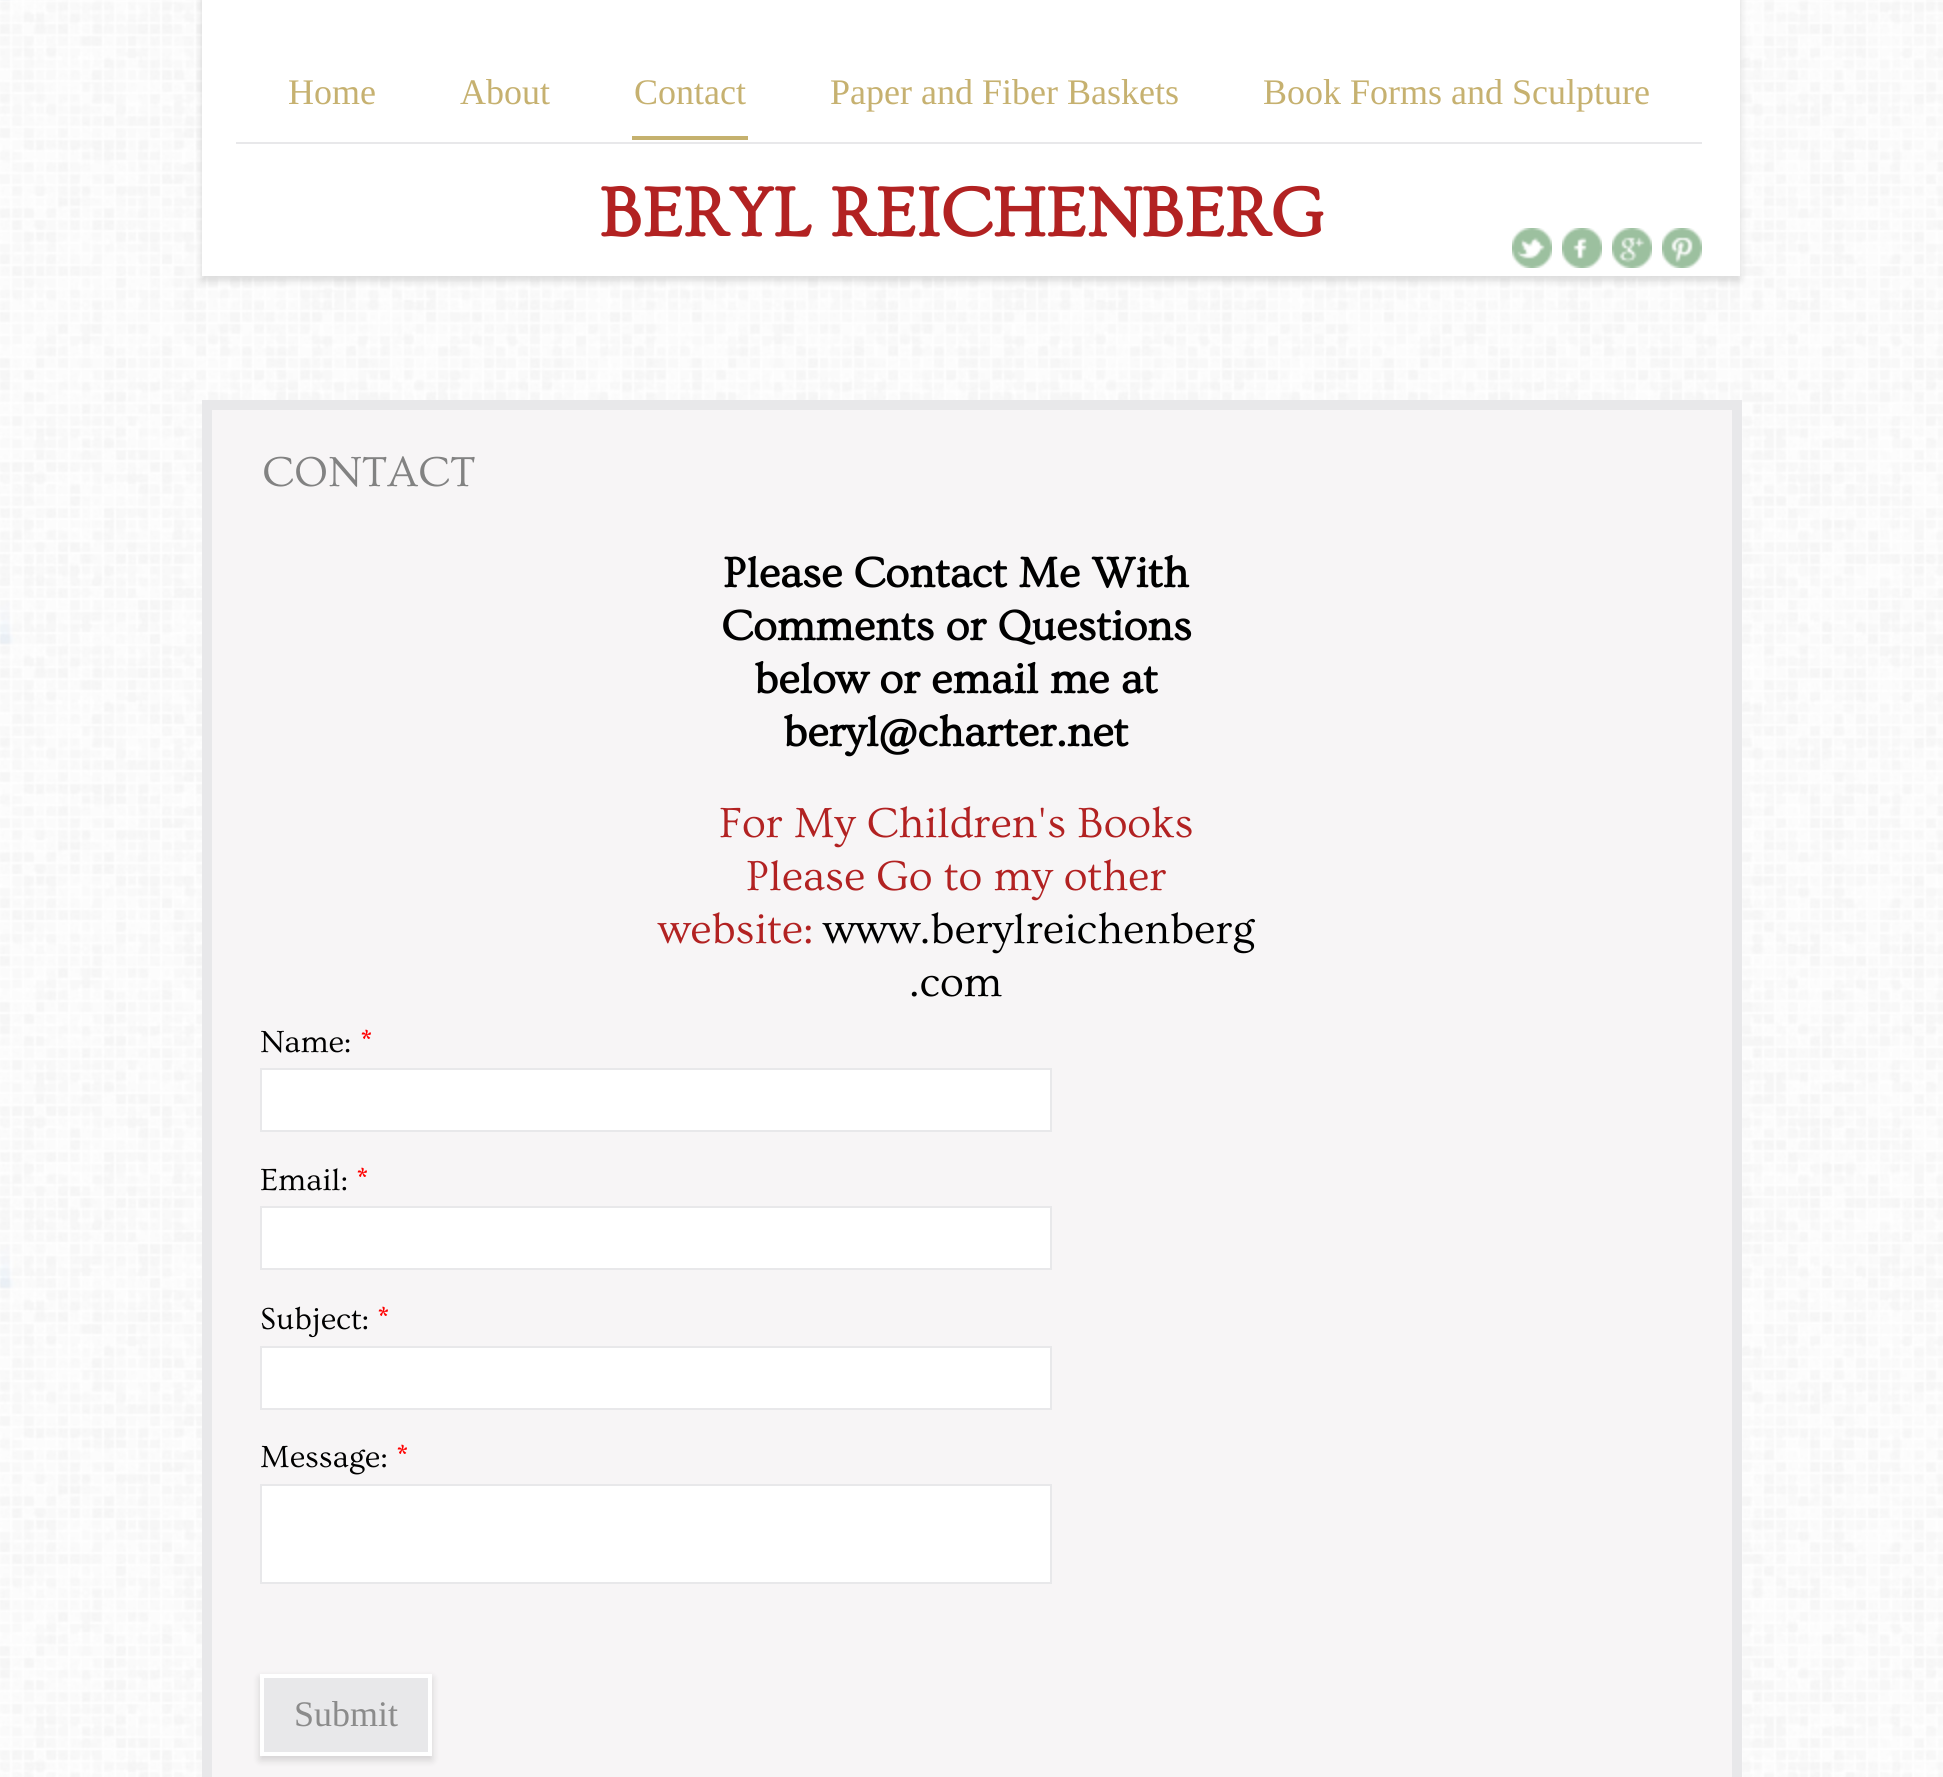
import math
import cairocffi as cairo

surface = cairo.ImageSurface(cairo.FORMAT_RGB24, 1943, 1777)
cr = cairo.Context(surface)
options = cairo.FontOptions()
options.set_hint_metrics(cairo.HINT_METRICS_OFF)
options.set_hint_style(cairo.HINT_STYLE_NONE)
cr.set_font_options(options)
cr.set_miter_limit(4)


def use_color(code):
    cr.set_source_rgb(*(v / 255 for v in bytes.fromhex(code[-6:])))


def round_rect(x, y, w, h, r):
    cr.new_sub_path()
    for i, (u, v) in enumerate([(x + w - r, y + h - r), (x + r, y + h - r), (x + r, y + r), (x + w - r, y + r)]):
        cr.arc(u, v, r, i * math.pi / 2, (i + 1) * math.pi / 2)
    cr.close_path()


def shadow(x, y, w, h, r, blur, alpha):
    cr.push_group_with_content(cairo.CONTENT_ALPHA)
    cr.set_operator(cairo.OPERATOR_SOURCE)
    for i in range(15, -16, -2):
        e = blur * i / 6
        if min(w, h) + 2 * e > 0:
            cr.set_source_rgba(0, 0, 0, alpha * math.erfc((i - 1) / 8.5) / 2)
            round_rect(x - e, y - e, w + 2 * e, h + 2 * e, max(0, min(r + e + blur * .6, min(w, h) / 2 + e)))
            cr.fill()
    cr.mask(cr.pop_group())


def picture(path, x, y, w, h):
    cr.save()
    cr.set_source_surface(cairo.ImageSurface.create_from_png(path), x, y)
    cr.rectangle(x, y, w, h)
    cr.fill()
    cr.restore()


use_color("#ffffff")
cr.paint()
picture("img1.png", 0, 0, 1943, 1777)
use_color("#f7f5f6")
cr.rectangle(207, 405, 1530, 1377)
cr.fill_preserve()
use_color("#e8e8ea")
cr.set_line_width(10)
cr.stroke()
use_color("#000000")
shadow(202, -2, 1538, 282, 0, 4, 0.15)
use_color("#ffffff")
cr.rectangle(202, 0, 1538, 276)
cr.fill()
use_color("#e8e8ea")
cr.rectangle(236, 142, 1466, 2)
cr.fill()
cr.select_font_face("Liberation Serif")
cr.set_font_size(36)
use_color("#c6b170")
cr.move_to(288, 104)
cr.show_text("Home")
cr.move_to(460, 104)
cr.show_text("About")
use_color("#c5b16e")
cr.rectangle(632, 136, 116, 4)
cr.fill()
use_color("#c6b170")
cr.move_to(634, 104)
cr.show_text("Contact")
cr.move_to(830, 104)
cr.show_text("Paper and Fiber Baskets")
cr.move_to(1263, 104)
cr.show_text("Book Forms and Sculpture")
cr.select_font_face("Ovo", cairo.FONT_SLANT_NORMAL, cairo.FONT_WEIGHT_BOLD)
cr.set_font_size(72)
use_color("#b22222")
cr.move_to(599, 236)
cr.show_text("BERYL REICHENBERG")
picture("img2.png", 1512, 228, 40, 40)
picture("img3.png", 1562, 228, 40, 40)
picture("img4.png", 1612, 228, 40, 40)
picture("img5.png", 1662, 228, 40, 40)
cr.select_font_face("Ovo")
cr.set_font_size(44)
use_color("#828282")
cr.move_to(262, 486)
cr.show_text("CONTACT")
cr.select_font_face("Ovo", cairo.FONT_SLANT_NORMAL, cairo.FONT_WEIGHT_BOLD)
use_color("#000000")
cr.move_to(723, 587)
cr.show_text("Please Contact Me With")
cr.move_to(721, 640)
cr.show_text("Comments or Questions")
cr.move_to(754, 693)
cr.show_text("below or email me at")
cr.move_to(783, 746)
cr.show_text("beryl@charter.net")
cr.select_font_face("Ovo")
use_color("#b22222")
cr.move_to(719, 837)
cr.show_text("For My Children's Books")
cr.move_to(746, 890)
cr.show_text("Please Go to my other")
cr.move_to(658, 943)
cr.show_text("website:")
use_color("#000000")
cr.move_to(823, 943)
cr.show_text("www.berylreichenberg")
cr.move_to(909, 996)
cr.show_text(".com")
cr.set_font_size(32)
cr.move_to(260, 1052)
cr.show_text("Name:")
use_color("#ff0000")
cr.move_to(360, 1052)
cr.show_text("*")
use_color("#ffffff")
cr.rectangle(261, 1069, 790, 62)
cr.fill_preserve()
use_color("#e8e8ea")
cr.set_line_width(2)
cr.stroke()
use_color("#000000")
cr.move_to(260, 1190)
cr.show_text("Email:")
use_color("#ff0000")
cr.move_to(356, 1190)
cr.show_text("*")
use_color("#ffffff")
cr.rectangle(261, 1207, 790, 62)
cr.fill_preserve()
use_color("#e8e8ea")
cr.stroke()
use_color("#000000")
cr.move_to(260, 1329)
cr.show_text("Subject:")
use_color("#ff0000")
cr.move_to(377, 1329)
cr.show_text("*")
use_color("#ffffff")
cr.rectangle(261, 1347, 790, 62)
cr.fill_preserve()
use_color("#e8e8ea")
cr.stroke()
use_color("#000000")
cr.move_to(260, 1467)
cr.show_text("Message:")
use_color("#ff0000")
cr.move_to(396, 1467)
cr.show_text("*")
use_color("#ffffff")
cr.rectangle(261, 1485, 790, 98)
cr.fill_preserve()
use_color("#e8e8ea")
cr.stroke()
use_color("#000000")
shadow(260, 1678, 172, 82, 0, 4, 0.15)
use_color("#e8e8ea")
cr.rectangle(262, 1676, 168, 78)
cr.fill_preserve()
use_color("#ffffff")
cr.set_line_width(4)
cr.stroke()
cr.select_font_face("Liberation Serif")
cr.set_font_size(36)
use_color("#8b8b8b")
cr.move_to(294, 1726)
cr.show_text("Submit")
surface.write_to_png("result.png")
